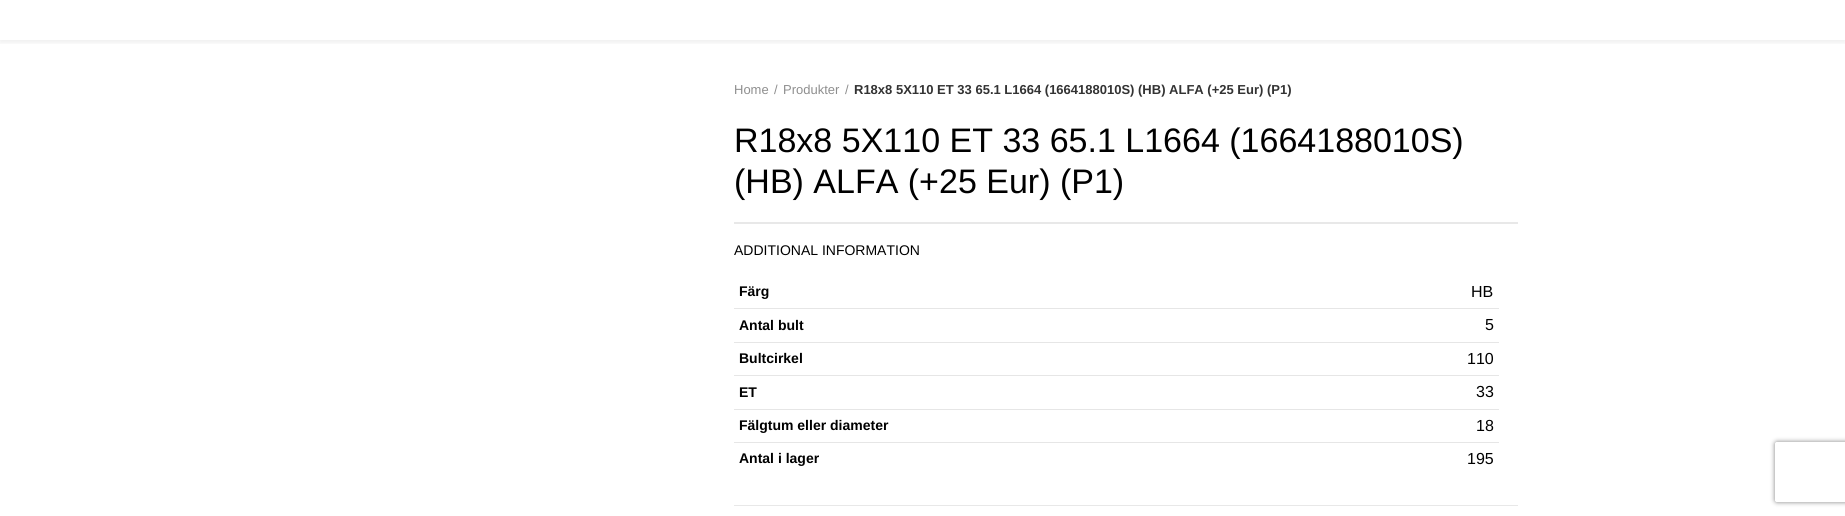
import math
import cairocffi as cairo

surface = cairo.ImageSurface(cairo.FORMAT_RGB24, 1845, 516)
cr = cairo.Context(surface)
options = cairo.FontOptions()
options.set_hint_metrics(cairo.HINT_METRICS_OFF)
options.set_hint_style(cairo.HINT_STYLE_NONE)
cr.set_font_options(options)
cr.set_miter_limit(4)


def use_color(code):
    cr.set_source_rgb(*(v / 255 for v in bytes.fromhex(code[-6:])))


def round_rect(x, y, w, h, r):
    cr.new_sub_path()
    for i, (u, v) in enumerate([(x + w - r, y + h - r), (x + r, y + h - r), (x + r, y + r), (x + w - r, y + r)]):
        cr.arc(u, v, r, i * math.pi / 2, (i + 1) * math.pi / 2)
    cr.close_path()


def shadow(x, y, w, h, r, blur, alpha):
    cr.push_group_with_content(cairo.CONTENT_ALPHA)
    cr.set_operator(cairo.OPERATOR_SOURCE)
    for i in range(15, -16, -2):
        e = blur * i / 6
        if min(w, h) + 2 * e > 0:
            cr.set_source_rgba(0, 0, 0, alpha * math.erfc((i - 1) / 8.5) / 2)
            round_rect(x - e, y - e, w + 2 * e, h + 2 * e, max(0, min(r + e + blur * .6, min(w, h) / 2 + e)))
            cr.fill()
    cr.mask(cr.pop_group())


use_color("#ffffff")
cr.paint()
cr.save()
cr.rectangle(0, 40, 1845, 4)
cr.clip()
use_color("#000000")
shadow(0, 1, 1845, 40, 0, 4, 0.1)
cr.restore()
cr.select_font_face("Liberation Sans")
cr.set_font_size(13)
use_color("#8e8e8e")
cr.move_to(734, 94)
cr.show_text("Home")
cr.move_to(774, 94)
cr.show_text("/")
cr.move_to(783, 94)
cr.show_text("Produkter")
cr.move_to(845, 94)
cr.show_text("/")
cr.select_font_face("Liberation Sans", cairo.FONT_SLANT_NORMAL, cairo.FONT_WEIGHT_BOLD)
use_color("#333333")
cr.move_to(854, 94)
cr.show_text("R18x8 5X110 ET 33 65.1 L1664 (1664188010S) (HB) ALFA (+25 Eur) (P1)")
cr.select_font_face("Liberation Sans")
cr.set_font_size(34)
use_color("#000000")
cr.move_to(734, 152)
cr.show_text("R18x8 5X110 ET 33 65.1 L1664 (1664188010S)")
cr.move_to(734, 193)
cr.show_text("(HB) ALFA (+25 Eur) (P1)")
use_color("#e8e8e8")
cr.rectangle(734, 222, 784, 2)
cr.fill()
cr.rectangle(734, 505, 784, 1)
cr.fill()
cr.set_font_size(14)
use_color("#000000")
cr.move_to(734, 255)
cr.show_text("ADDITIONAL INFORMATION")
cr.select_font_face("Liberation Sans", cairo.FONT_SLANT_NORMAL, cairo.FONT_WEIGHT_BOLD)
cr.move_to(739, 296)
cr.show_text("Färg")
use_color("#e6e6e6")
cr.rectangle(734, 308, 765, 1)
cr.fill()
cr.select_font_face("Liberation Sans")
cr.set_font_size(16)
use_color("#000000")
cr.move_to(1471, 297)
cr.show_text("HB")
cr.select_font_face("Liberation Sans", cairo.FONT_SLANT_NORMAL, cairo.FONT_WEIGHT_BOLD)
cr.set_font_size(14)
cr.move_to(739, 330)
cr.show_text("Antal bult")
use_color("#e6e6e6")
cr.rectangle(734, 342, 765, 1)
cr.fill()
cr.select_font_face("Liberation Sans")
cr.set_font_size(16)
use_color("#000000")
cr.move_to(1485, 330)
cr.show_text("5")
cr.select_font_face("Liberation Sans", cairo.FONT_SLANT_NORMAL, cairo.FONT_WEIGHT_BOLD)
cr.set_font_size(14)
cr.move_to(739, 363)
cr.show_text("Bultcirkel")
use_color("#e6e6e6")
cr.rectangle(734, 375, 765, 1)
cr.fill()
cr.select_font_face("Liberation Sans")
cr.set_font_size(16)
use_color("#000000")
cr.move_to(1467, 364)
cr.show_text("110")
cr.select_font_face("Liberation Sans", cairo.FONT_SLANT_NORMAL, cairo.FONT_WEIGHT_BOLD)
cr.set_font_size(14)
cr.move_to(739, 397)
cr.show_text("ET")
use_color("#e6e6e6")
cr.rectangle(734, 409, 765, 1)
cr.fill()
cr.select_font_face("Liberation Sans")
cr.set_font_size(16)
use_color("#000000")
cr.move_to(1476, 397)
cr.show_text("33")
cr.select_font_face("Liberation Sans", cairo.FONT_SLANT_NORMAL, cairo.FONT_WEIGHT_BOLD)
cr.set_font_size(14)
cr.move_to(739, 430)
cr.show_text("Fälgtum eller diameter")
use_color("#e6e6e6")
cr.rectangle(734, 442, 765, 1)
cr.fill()
cr.select_font_face("Liberation Sans")
cr.set_font_size(16)
use_color("#000000")
cr.move_to(1476, 431)
cr.show_text("18")
cr.select_font_face("Liberation Sans", cairo.FONT_SLANT_NORMAL, cairo.FONT_WEIGHT_BOLD)
cr.set_font_size(14)
cr.move_to(739, 463)
cr.show_text("Antal i lager")
cr.select_font_face("Liberation Sans")
cr.set_font_size(16)
cr.move_to(1467, 464)
cr.show_text("195")
cr.save()
cr.set_fill_rule(cairo.FILL_RULE_EVEN_ODD)
cr.new_path()
cr.move_to(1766, 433)
cr.line_to(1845, 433)
cr.line_to(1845, 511)
cr.line_to(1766, 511)
cr.close_path()
cr.move_to(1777, 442)
cr.line_to(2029, 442)
cr.curve_to(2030, 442, 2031, 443, 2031, 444)
cr.line_to(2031, 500)
cr.curve_to(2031, 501, 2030, 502, 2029, 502)
cr.line_to(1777, 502)
cr.curve_to(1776, 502, 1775, 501, 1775, 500)
cr.line_to(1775, 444)
cr.curve_to(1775, 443, 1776, 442, 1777, 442)
cr.close_path()
cr.clip()
use_color("#808080")
shadow(1775, 442, 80, 60, 2, 2.5, 1)
cr.restore()
surface.write_to_png("result.png")
